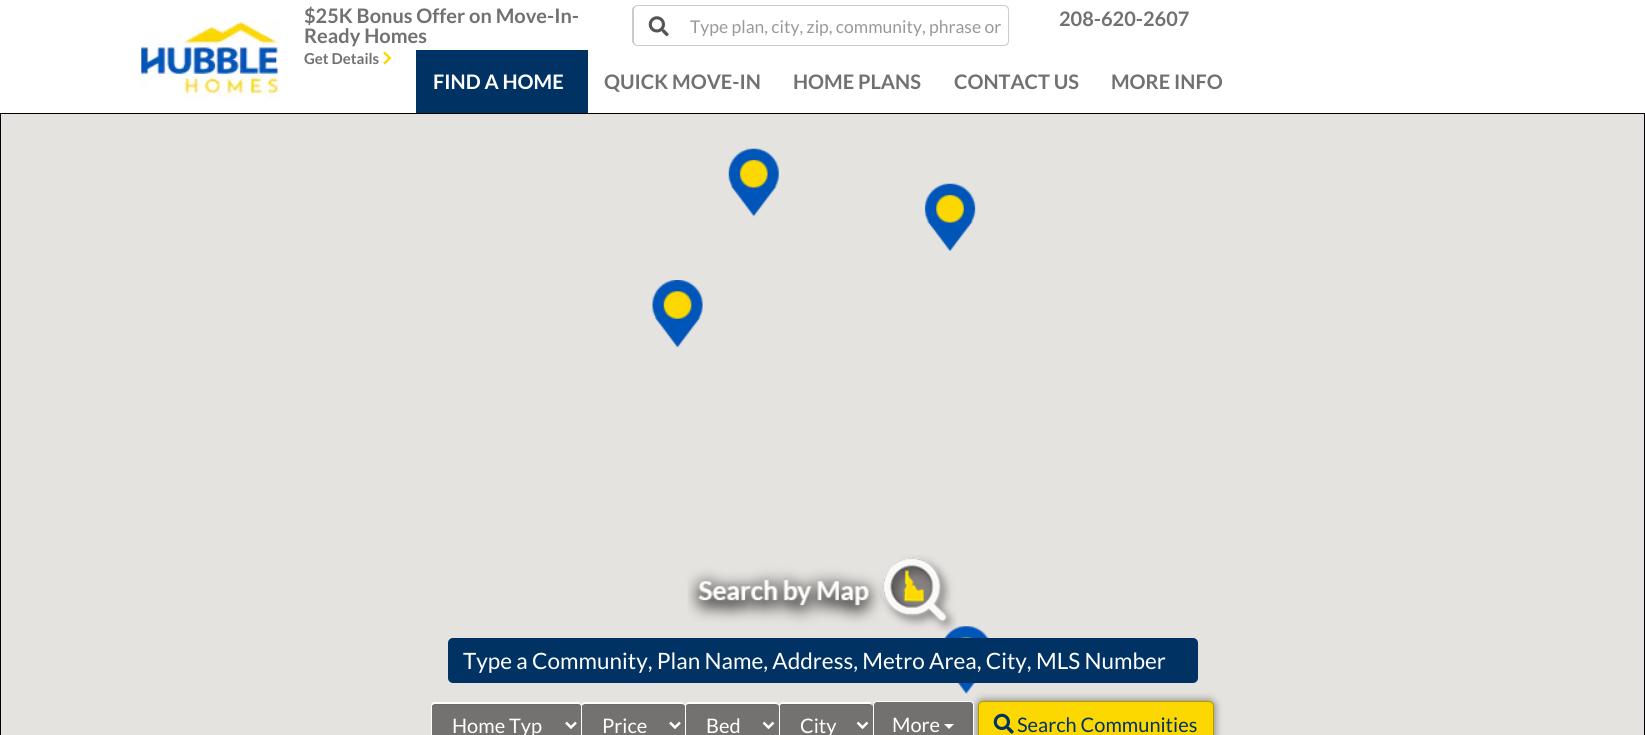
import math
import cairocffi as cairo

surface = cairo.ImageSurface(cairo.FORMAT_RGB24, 1645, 735)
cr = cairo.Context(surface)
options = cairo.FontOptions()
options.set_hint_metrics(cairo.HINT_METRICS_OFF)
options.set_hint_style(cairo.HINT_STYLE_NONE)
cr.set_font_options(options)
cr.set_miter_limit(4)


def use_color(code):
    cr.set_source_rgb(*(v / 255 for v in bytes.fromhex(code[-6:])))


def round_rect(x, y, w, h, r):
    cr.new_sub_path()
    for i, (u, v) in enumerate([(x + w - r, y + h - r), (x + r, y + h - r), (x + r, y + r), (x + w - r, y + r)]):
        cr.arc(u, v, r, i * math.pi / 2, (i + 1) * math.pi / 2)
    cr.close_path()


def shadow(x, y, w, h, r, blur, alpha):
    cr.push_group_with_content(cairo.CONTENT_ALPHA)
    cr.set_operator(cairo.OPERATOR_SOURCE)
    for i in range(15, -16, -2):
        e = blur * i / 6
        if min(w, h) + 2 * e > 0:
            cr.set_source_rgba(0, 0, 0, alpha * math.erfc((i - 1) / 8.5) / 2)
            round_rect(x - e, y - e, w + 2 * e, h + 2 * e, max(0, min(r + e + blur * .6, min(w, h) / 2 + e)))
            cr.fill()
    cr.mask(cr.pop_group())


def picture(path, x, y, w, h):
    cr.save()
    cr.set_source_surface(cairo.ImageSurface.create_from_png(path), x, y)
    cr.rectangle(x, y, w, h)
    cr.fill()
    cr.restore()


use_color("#ffffff")
cr.paint()
picture("img1.png", 139, 18, 141, 82)
cr.select_font_face("Lato", cairo.FONT_SLANT_NORMAL, cairo.FONT_WEIGHT_BOLD)
cr.set_font_size(20)
use_color("#717171")
cr.move_to(304, 23)
cr.show_text("$25K Bonus Offer on Move-In-")
cr.move_to(304, 43)
cr.show_text("Ready Homes")
cr.set_font_size(15)
cr.move_to(304, 64)
cr.show_text("Get Details")
picture("img2.png", 383, 51, 9, 14)
use_color("#cccccc")
cr.set_fill_rule(cairo.FILL_RULE_EVEN_ODD)
cr.new_path()
cr.move_to(638, 5)
cr.line_to(684, 5)
cr.line_to(684, 46)
cr.line_to(638, 46)
cr.curve_to(635, 46, 632, 44, 632, 41)
cr.line_to(632, 10)
cr.curve_to(632, 7, 635, 5, 638, 5)
cr.close_path()
cr.move_to(638, 6)
cr.line_to(684, 6)
cr.line_to(684, 45)
cr.line_to(638, 45)
cr.curve_to(635, 45, 634, 43, 634, 41)
cr.line_to(634, 10)
cr.curve_to(634, 8, 635, 6, 638, 6)
cr.close_path()
cr.fill()
picture("img3.png", 648, 16, 21, 21)
cr.new_path()
cr.move_to(684, 5)
cr.line_to(1004, 5)
cr.curve_to(1007, 5, 1009, 7, 1009, 10)
cr.line_to(1009, 41)
cr.curve_to(1009, 44, 1007, 46, 1004, 46)
cr.line_to(684, 46)
cr.close_path()
cr.move_to(684, 6)
cr.line_to(1004, 6)
cr.curve_to(1006, 6, 1008, 8, 1008, 10)
cr.line_to(1008, 41)
cr.curve_to(1008, 43, 1006, 45, 1004, 45)
cr.line_to(684, 45)
cr.close_path()
cr.fill()
cr.select_font_face("Lato")
cr.set_font_size(17.5)
use_color("#999999")
cr.move_to(690, 33)
cr.show_text("Type plan, city, zip, community, phrase or")
cr.select_font_face("Lato", cairo.FONT_SLANT_NORMAL, cairo.FONT_WEIGHT_BOLD)
cr.set_font_size(20)
use_color("#717171")
cr.move_to(1059, 26)
cr.show_text("208-620-2607")
use_color("#003264")
cr.rectangle(416, 50, 172, 63)
cr.fill()
use_color("#ffffff")
cr.move_to(433, 89)
cr.show_text("FIND A HOME")
use_color("#717171")
cr.move_to(604, 89)
cr.show_text("QUICK MOVE-IN")
cr.move_to(793, 89)
cr.show_text("HOME PLANS")
cr.move_to(954, 89)
cr.show_text("CONTACT US")
cr.move_to(1111, 89)
cr.show_text("MORE INFO")
cr.rectangle(0.5, 113.5, 1644, 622)
use_color("#000000")
cr.set_line_width(1)
cr.stroke()
use_color("#e5e3df")
cr.rectangle(1, 114, 1643, 621)
cr.fill()
picture("img4.png", 728, 148, 51, 69)
picture("img5.png", 924, 183, 52, 69)
picture("img6.png", 652, 280, 51, 68)
picture("img7.png", 943, 626, 46, 68)
picture("img8.png", 687, 555, 270, 77)
use_color("#003264")
round_rect(448, 638, 750, 45, 5)
cr.fill()
cr.set_source_rgba(0, 0, 0, 0.07)
cr.set_fill_rule(cairo.FILL_RULE_WINDING)
cr.new_path()
cr.move_to(452, 639)
cr.line_to(1192, 639)
cr.curve_to(1195, 639, 1198, 641, 1198, 644)
cr.line_to(1198, 643)
cr.curve_to(1198, 640, 1196, 638, 1193, 638)
cr.line_to(453, 638)
cr.curve_to(450, 638, 448, 640, 448, 643)
cr.line_to(448, 644)
cr.curve_to(448, 641, 450, 639, 452, 639)
cr.close_path()
cr.fill()
cr.select_font_face("Lato")
cr.set_font_size(22.5)
use_color("#ffffff")
cr.move_to(463, 669)
cr.show_text("Type a Community, Plan Name, Address, Metro Area, City, MLS Number")
use_color("#737270")
round_rect(431, 703, 150, 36, 4)
cr.fill()
cr.set_source_rgba(0, 0, 0, 0.07)
cr.new_path()
cr.move_to(435, 705)
cr.line_to(578, 705)
cr.curve_to(580, 705, 581, 706, 581, 708)
cr.line_to(581, 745)
cr.line_to(581, 706)
cr.curve_to(581, 705, 580, 704, 578, 704)
cr.line_to(435, 704)
cr.curve_to(434, 704, 432, 705, 432, 706)
cr.close_path()
cr.fill()
use_color("#ffffff")
cr.set_fill_rule(cairo.FILL_RULE_EVEN_ODD)
cr.new_path()
cr.move_to(435, 702)
cr.line_to(578, 702)
cr.curve_to(580, 702, 581, 704, 581, 706)
cr.line_to(581, 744)
cr.curve_to(581, 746, 580, 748, 578, 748)
cr.line_to(435, 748)
cr.curve_to(433, 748, 431, 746, 431, 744)
cr.line_to(431, 706)
cr.curve_to(431, 704, 433, 702, 435, 702)
cr.close_path()
cr.move_to(435, 704)
cr.line_to(578, 704)
cr.curve_to(580, 704, 581, 705, 581, 706)
cr.line_to(581, 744)
cr.curve_to(581, 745, 580, 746, 578, 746)
cr.line_to(435, 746)
cr.curve_to(434, 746, 432, 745, 432, 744)
cr.line_to(432, 706)
cr.curve_to(432, 705, 434, 704, 435, 704)
cr.close_path()
cr.fill()
cr.new_path()
cr.move_to(566, 722.5)
cr.line_to(571, 727.5)
cr.line_to(576, 722.5)
cr.set_line_width(2.5)
cr.stroke()
cr.set_font_size(20)
cr.move_to(452, 733)
cr.show_text("Home Typ")
use_color("#737270")
round_rect(581, 703, 104, 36, 4)
cr.fill()
cr.set_source_rgba(0, 0, 0, 0.07)
cr.set_fill_rule(cairo.FILL_RULE_WINDING)
cr.new_path()
cr.move_to(585, 705)
cr.line_to(681, 705)
cr.curve_to(683, 705, 685, 706, 685, 708)
cr.line_to(685, 706)
cr.curve_to(685, 705, 683, 704, 681, 704)
cr.line_to(585, 704)
cr.curve_to(584, 704, 582, 705, 582, 706)
cr.close_path()
cr.fill()
use_color("#ffffff")
cr.set_fill_rule(cairo.FILL_RULE_EVEN_ODD)
cr.new_path()
cr.move_to(585, 702)
cr.line_to(681, 702)
cr.curve_to(683, 702, 685, 704, 685, 706)
cr.line_to(685, 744)
cr.curve_to(685, 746, 683, 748, 681, 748)
cr.line_to(585, 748)
cr.curve_to(583, 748, 581, 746, 581, 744)
cr.line_to(581, 706)
cr.curve_to(581, 704, 583, 702, 585, 702)
cr.close_path()
cr.move_to(585, 704)
cr.line_to(681, 704)
cr.curve_to(683, 704, 685, 705, 685, 706)
cr.line_to(685, 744)
cr.curve_to(685, 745, 683, 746, 681, 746)
cr.line_to(585, 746)
cr.curve_to(584, 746, 582, 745, 582, 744)
cr.line_to(582, 706)
cr.curve_to(582, 705, 584, 704, 585, 704)
cr.close_path()
cr.fill()
cr.new_path()
cr.move_to(670, 722.5)
cr.line_to(675, 727.5)
cr.line_to(680, 722.5)
cr.stroke()
cr.move_to(602, 733)
cr.show_text("Price")
use_color("#737270")
round_rect(685, 703, 94, 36, 4)
cr.fill()
cr.set_source_rgba(0, 0, 0, 0.07)
cr.set_fill_rule(cairo.FILL_RULE_WINDING)
cr.new_path()
cr.move_to(689, 705)
cr.line_to(775, 705)
cr.curve_to(777, 705, 778, 706, 779, 707)
cr.curve_to(779, 705, 778, 704, 776, 704)
cr.line_to(703, 704)
cr.curve_to(697, 704, 686, 701, 686, 707)
cr.curve_to(687, 706, 688, 705, 689, 705)
cr.close_path()
cr.fill()
use_color("#ffffff")
cr.set_fill_rule(cairo.FILL_RULE_EVEN_ODD)
cr.new_path()
cr.move_to(689, 702)
cr.line_to(775, 702)
cr.curve_to(777, 702, 779, 704, 779, 706)
cr.line_to(779, 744)
cr.curve_to(779, 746, 777, 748, 775, 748)
cr.line_to(689, 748)
cr.curve_to(687, 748, 685, 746, 685, 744)
cr.line_to(685, 706)
cr.curve_to(685, 704, 687, 702, 689, 702)
cr.close_path()
cr.move_to(689, 704)
cr.line_to(775, 704)
cr.curve_to(777, 704, 779, 705, 779, 706)
cr.line_to(779, 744)
cr.curve_to(779, 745, 777, 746, 775, 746)
cr.line_to(689, 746)
cr.curve_to(687, 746, 686, 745, 686, 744)
cr.line_to(686, 706)
cr.curve_to(686, 705, 687, 704, 689, 704)
cr.close_path()
cr.fill()
cr.new_path()
cr.move_to(763.5, 722.5)
cr.line_to(768.5, 727.5)
cr.line_to(773.5, 722.5)
cr.stroke()
cr.move_to(706, 733)
cr.show_text("Bed")
use_color("#737270")
round_rect(779, 703, 94, 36, 4)
cr.fill()
use_color("#6a6968")
cr.set_fill_rule(cairo.FILL_RULE_WINDING)
cr.new_path()
cr.move_to(782, 705)
cr.line_to(869, 705)
cr.curve_to(871, 705, 872, 706, 872, 708)
cr.line_to(872, 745)
cr.line_to(872, 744)
cr.line_to(872, 706)
cr.curve_to(872, 705, 871, 704, 869, 704)
cr.line_to(782, 704)
cr.curve_to(781, 704, 780, 705, 780, 706)
cr.line_to(780, 708)
cr.curve_to(780, 706, 781, 705, 782, 705)
cr.close_path()
cr.fill()
use_color("#ffffff")
cr.set_fill_rule(cairo.FILL_RULE_EVEN_ODD)
cr.new_path()
cr.move_to(782, 702)
cr.line_to(869, 702)
cr.curve_to(871, 702, 872, 704, 872, 706)
cr.line_to(872, 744)
cr.curve_to(872, 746, 871, 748, 869, 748)
cr.line_to(782, 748)
cr.curve_to(780, 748, 779, 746, 779, 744)
cr.line_to(779, 706)
cr.curve_to(779, 704, 780, 702, 782, 702)
cr.close_path()
cr.move_to(782, 704)
cr.line_to(869, 704)
cr.curve_to(871, 704, 872, 705, 872, 706)
cr.line_to(872, 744)
cr.curve_to(872, 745, 871, 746, 869, 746)
cr.line_to(782, 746)
cr.curve_to(781, 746, 780, 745, 780, 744)
cr.line_to(780, 706)
cr.curve_to(780, 705, 781, 704, 782, 704)
cr.close_path()
cr.fill()
cr.new_path()
cr.move_to(857.5, 722.5)
cr.line_to(862.5, 727.5)
cr.line_to(867.5, 722.5)
cr.stroke()
cr.move_to(800, 733)
cr.show_text("City")
use_color("#000000")
shadow(978, 701, 236, 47, 5, 4.5, 0.5)
cr.set_source_rgba(0, 0, 0, 0.5)
round_rect(873.5, 701.5, 100, 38, 3.5)
cr.fill_preserve()
use_color("#ffffff")
cr.set_line_width(1)
cr.stroke()
cr.move_to(892, 732)
cr.show_text("More")
cr.set_fill_rule(cairo.FILL_RULE_WINDING)
cr.new_path()
cr.move_to(944, 724)
cr.line_to(954, 724)
cr.line_to(949, 729)
cr.close_path()
cr.fill()
use_color("#fcd700")
round_rect(978.5, 701.5, 235, 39, 4.5)
cr.fill_preserve()
use_color("#b59a00")
cr.stroke()
picture("img9.png", 993, 713, 21, 21)
use_color("#003264")
cr.move_to(1017, 732)
cr.show_text("Search Communities")
surface.write_to_png("result.png")
